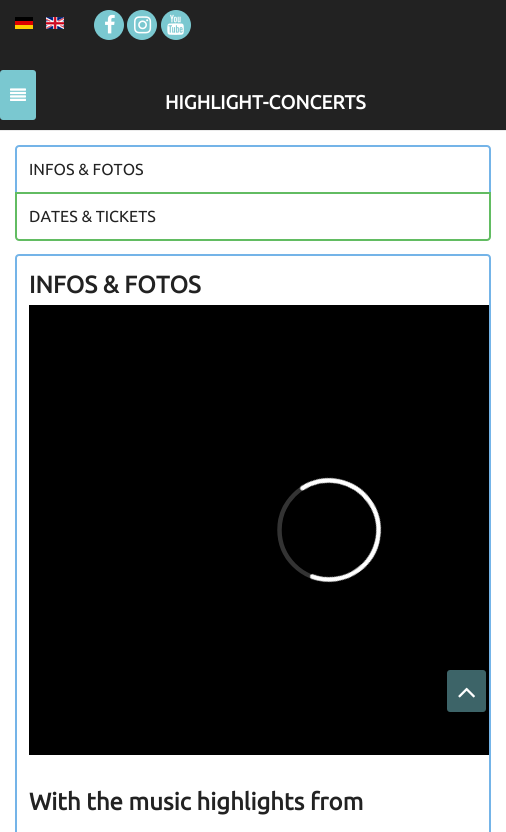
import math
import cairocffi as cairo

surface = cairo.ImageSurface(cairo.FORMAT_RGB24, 506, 832)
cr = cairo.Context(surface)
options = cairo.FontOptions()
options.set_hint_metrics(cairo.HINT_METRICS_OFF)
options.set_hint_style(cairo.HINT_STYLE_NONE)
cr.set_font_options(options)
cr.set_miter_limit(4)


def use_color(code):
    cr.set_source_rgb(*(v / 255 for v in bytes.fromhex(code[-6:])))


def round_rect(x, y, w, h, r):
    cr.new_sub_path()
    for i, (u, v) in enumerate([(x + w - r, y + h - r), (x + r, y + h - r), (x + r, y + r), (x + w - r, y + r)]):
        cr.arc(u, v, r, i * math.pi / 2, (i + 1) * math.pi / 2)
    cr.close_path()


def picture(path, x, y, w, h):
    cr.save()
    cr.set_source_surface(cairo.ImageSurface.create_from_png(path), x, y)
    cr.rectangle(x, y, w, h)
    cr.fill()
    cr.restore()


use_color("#222222")
cr.paint()
picture("img1.png", 15, 17, 18, 12)
picture("img2.png", 46, 17, 18, 12)
use_color("#7ac8d0")
cr.arc(109, 25, 15, 0, 2 * math.pi)
cr.fill()
picture("img3.png", 105, 14, 10, 20)
cr.arc(142, 25, 15, 0, 2 * math.pi)
cr.fill()
picture("img4.png", 134, 16, 18, 18)
cr.arc(176, 25, 15, 0, 2 * math.pi)
cr.fill()
picture("img5.png", 167, 14, 17, 21)
use_color("#ebebeb")
cr.rectangle(0, 130, 506, 1)
cr.fill()
use_color("#7ac8d0")
round_rect(0, 70, 36, 50, 3)
cr.fill()
picture("img6.png", 10, 88, 16, 13)
cr.select_font_face("Ubuntu", cairo.FONT_SLANT_NORMAL, cairo.FONT_WEIGHT_BOLD)
cr.set_font_size(19.25)
use_color("#ffffff")
cr.move_to(165, 109)
cr.show_text("HIGHLIGHT-CONCERTS")
cr.rectangle(0, 131, 506, 701)
cr.fill()
cr.new_path()
cr.move_to(19, 146)
cr.line_to(487, 146)
cr.curve_to(488.5, 146, 490, 147.5, 490, 149)
cr.line_to(490, 193)
cr.line_to(16, 193)
cr.line_to(16, 149)
cr.curve_to(16, 147.5, 17.5, 146, 19, 146)
cr.close_path()
use_color("#74b4e8")
cr.stroke()
cr.select_font_face("Ubuntu")
cr.set_font_size(16)
use_color("#222222")
cr.move_to(29, 175)
cr.show_text("INFOS & FOTOS")
cr.new_path()
cr.move_to(16, 193)
cr.line_to(490, 193)
cr.line_to(490, 237)
cr.curve_to(490, 238.5, 488.5, 240, 487, 240)
cr.line_to(19, 240)
cr.curve_to(17.5, 240, 16, 238.5, 16, 237)
cr.close_path()
use_color("#62bc62")
cr.stroke()
use_color("#222222")
cr.move_to(29, 222)
cr.show_text("DATES & TICKETS")
round_rect(16, 255, 474, 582, 3)
use_color("#74b4e8")
cr.stroke()
cr.select_font_face("Ubuntu", cairo.FONT_SLANT_NORMAL, cairo.FONT_WEIGHT_BOLD)
cr.set_font_size(24)
use_color("#222222")
cr.move_to(29, 293)
cr.show_text("INFOS & FOTOS")
picture("img7.png", 29, 305, 460, 450)
cr.move_to(29, 810)
cr.show_text("With the music highlights from")
use_color("#3d6468")
round_rect(447, 670, 39, 42, 3)
cr.fill()
picture("img8.png", 458, 687, 17, 11)
surface.write_to_png("result.png")
